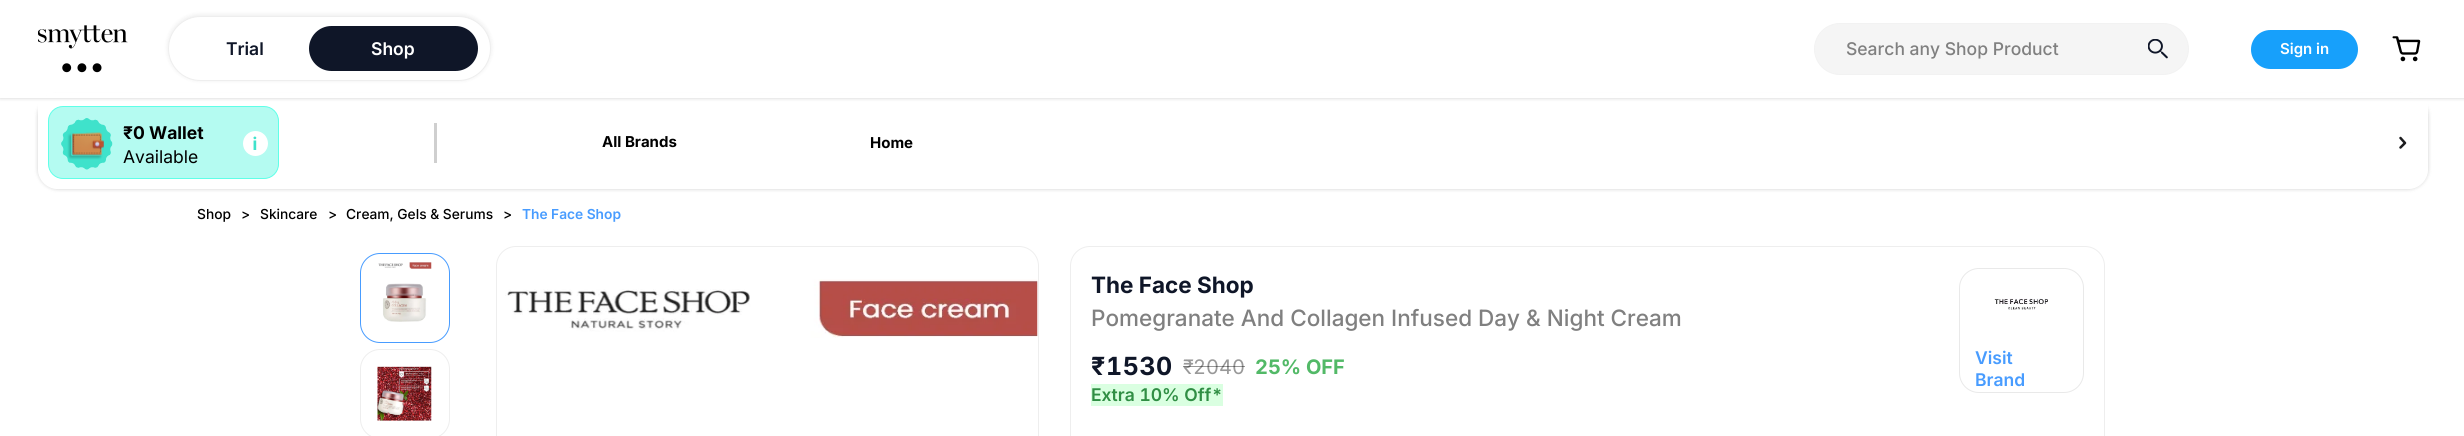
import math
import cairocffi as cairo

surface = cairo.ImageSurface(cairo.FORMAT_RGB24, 2464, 436)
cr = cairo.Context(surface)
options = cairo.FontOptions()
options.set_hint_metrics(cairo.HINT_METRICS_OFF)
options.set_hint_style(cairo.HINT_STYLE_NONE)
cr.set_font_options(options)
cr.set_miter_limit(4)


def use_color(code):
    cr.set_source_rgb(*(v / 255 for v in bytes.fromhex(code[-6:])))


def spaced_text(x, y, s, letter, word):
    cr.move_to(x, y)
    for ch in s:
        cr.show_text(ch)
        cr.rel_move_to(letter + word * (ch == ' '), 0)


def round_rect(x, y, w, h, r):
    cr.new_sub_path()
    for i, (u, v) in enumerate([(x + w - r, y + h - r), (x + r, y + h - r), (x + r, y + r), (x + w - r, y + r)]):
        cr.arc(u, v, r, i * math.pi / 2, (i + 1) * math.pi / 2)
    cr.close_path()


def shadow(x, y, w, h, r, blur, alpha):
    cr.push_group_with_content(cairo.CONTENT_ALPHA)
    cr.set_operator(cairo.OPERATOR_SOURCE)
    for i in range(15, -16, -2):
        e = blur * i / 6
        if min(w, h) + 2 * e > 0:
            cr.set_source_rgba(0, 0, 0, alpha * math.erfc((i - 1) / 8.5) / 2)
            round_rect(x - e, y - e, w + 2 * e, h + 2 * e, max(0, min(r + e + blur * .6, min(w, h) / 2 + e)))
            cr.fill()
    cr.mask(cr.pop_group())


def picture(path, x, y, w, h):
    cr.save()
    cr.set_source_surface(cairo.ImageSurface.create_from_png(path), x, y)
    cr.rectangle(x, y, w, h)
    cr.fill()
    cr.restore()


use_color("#ffffff")
cr.paint()
cr.save()
cr.set_fill_rule(cairo.FILL_RULE_EVEN_ODD)
cr.new_path()
cr.move_to(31, 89)
cr.line_to(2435, 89)
cr.line_to(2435, 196)
cr.line_to(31, 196)
cr.close_path()
cr.move_to(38, 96)
cr.line_to(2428, 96)
cr.line_to(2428, 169)
cr.curve_to(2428, 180, 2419, 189, 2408, 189)
cr.line_to(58, 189)
cr.curve_to(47, 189, 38, 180, 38, 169)
cr.close_path()
cr.clip()
use_color("#000000")
shadow(38, 96, 2390, 93, 20, 2, 0.2)
cr.restore()
use_color("#ffffff")
cr.rectangle(47, 93, 2372, 4)
cr.fill()
cr.save()
cr.set_fill_rule(cairo.FILL_RULE_EVEN_ODD)
cr.new_path()
cr.move_to(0, 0)
cr.line_to(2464, 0)
cr.line_to(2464, 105)
cr.line_to(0, 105)
cr.close_path()
cr.move_to(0, 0)
cr.line_to(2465, 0)
cr.line_to(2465, 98)
cr.line_to(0, 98)
cr.close_path()
cr.clip()
use_color("#000000")
shadow(0, 0, 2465, 98, 0, 2, 0.2)
cr.restore()
picture("img1.png", 38, 25, 90, 48)
use_color("#000000")
shadow(168, 15, 323, 65, 32.5, 2.5, 0.08)
use_color("#ffffff")
round_rect(168.5, 16.5, 322, 64, 32)
cr.fill_preserve()
use_color("#eeeeee")
cr.set_line_width(1)
cr.stroke()
cr.select_font_face("Inter SemiBold")
cr.set_font_size(17.5)
use_color("#0f1628")
cr.move_to(226, 55)
cr.show_text("Trial")
round_rect(309, 26, 169, 45, 22.5)
cr.fill()
use_color("#ffffff")
cr.move_to(371, 55)
cr.show_text("Shop")
use_color("#f5f5f5")
round_rect(1814.5, 23.5, 374, 51, 25.5)
cr.fill_preserve()
use_color("#f2f2f2")
cr.stroke()
cr.select_font_face("Inter Medium")
use_color("#808080")
cr.move_to(1846, 55)
cr.show_text("Search any Shop Product")
picture("img2.png", 2148, 39, 20, 20)
use_color("#17a0fb")
round_rect(2251, 30, 107, 39, 19.5)
cr.fill()
cr.select_font_face("Inter SemiBold")
cr.set_font_size(15)
use_color("#ffffff")
cr.move_to(2280, 54)
cr.show_text("Sign in")
picture("img3.png", 2392, 36, 29, 26)
use_color("#b4fbf1")
round_rect(48.5, 106.5, 230, 72, 14.5)
cr.fill_preserve()
use_color("#5fffe8")
cr.stroke()
picture("img4.png", 61, 118, 52, 52)
cr.select_font_face("Inter", cairo.FONT_SLANT_NORMAL, cairo.FONT_WEIGHT_BOLD)
cr.set_font_size(17.5)
use_color("#000000")
cr.move_to(123, 139)
cr.show_text("₹0")
cr.move_to(149, 139)
cr.show_text("Wallet")
cr.select_font_face("Inter")
cr.move_to(123, 163)
cr.show_text("Available")
picture("img5.png", 243, 131, 25, 25)
use_color("#cfcfcf")
cr.rectangle(434, 123, 3, 40)
cr.fill()
cr.select_font_face("Inter", cairo.FONT_SLANT_NORMAL, cairo.FONT_WEIGHT_BOLD)
cr.set_font_size(15)
use_color("#000000")
cr.move_to(602, 147)
cr.show_text("All Brands")
cr.move_to(870, 148)
cr.show_text("Home")
cr.new_path()
cr.move_to(2400.5, 138)
cr.line_to(2405, 143)
cr.line_to(2400.5, 147.5)
use_color("#1c1c1e")
cr.set_line_width(2.5)
cr.set_line_cap(cairo.LINE_CAP_ROUND)
cr.set_line_join(cairo.LINE_JOIN_ROUND)
cr.stroke()
cr.select_font_face("Inter Medium")
cr.set_font_size(13.75)
use_color("#000000")
cr.move_to(197, 219)
cr.show_text("Shop")
cr.move_to(241, 219)
cr.show_text(">")
cr.move_to(260, 219)
cr.show_text("Skincare")
cr.move_to(328, 219)
cr.show_text(">")
cr.move_to(346, 219)
cr.show_text("Cream, Gels & Serums")
cr.move_to(503, 219)
cr.show_text(">")
cr.select_font_face("Inter SemiBold")
use_color("#489cff")
cr.move_to(522, 219)
cr.show_text("The Face Shop")
round_rect(360.5, 253.5, 89, 89, 19.5)
cr.set_line_width(1)
cr.set_line_cap(cairo.LINE_CAP_BUTT)
cr.set_line_join(cairo.LINE_JOIN_MITER)
cr.stroke()
picture("img6.png", 378, 262, 54, 60)
round_rect(360.5, 349.5, 89, 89, 19.5)
use_color("#eeeeee")
cr.stroke()
picture("img7.png", 377, 366, 55, 55)
round_rect(496.5, 246.5, 542, 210, 19.5)
cr.stroke()
picture("img8.png", 505, 279, 533, 59)
round_rect(1070.5, 246.5, 1034, 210, 19.5)
cr.stroke()
cr.select_font_face("Inter", cairo.FONT_SLANT_NORMAL, cairo.FONT_WEIGHT_BOLD)
cr.set_font_size(22.5)
use_color("#0f1628")
cr.move_to(1091, 293)
cr.show_text("The Face Shop")
cr.select_font_face("Inter Medium")
use_color("#808080")
cr.move_to(1091, 326)
cr.show_text("Pomegranate And Collagen Infused Day & Night Cream")
cr.select_font_face("Inter", cairo.FONT_SLANT_NORMAL, cairo.FONT_WEIGHT_BOLD)
cr.set_font_size(25)
use_color("#0f1628")
spaced_text(1091, 375, "₹", 0.5, 0)
cr.select_font_face("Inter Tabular", cairo.FONT_SLANT_NORMAL, cairo.FONT_WEIGHT_BOLD)
spaced_text(1106, 375, "1530", 0.5, 0)
cr.select_font_face("Inter")
cr.set_font_size(20)
use_color("#999999")
cr.move_to(1183, 374)
cr.show_text("₹")
cr.set_source_rgba(0, 0, 0, 0.4)
cr.rectangle(1183, 366, 11, 1)
cr.fill()
cr.select_font_face("Inter Tabular")
use_color("#999999")
cr.move_to(1193, 374)
cr.show_text("2040")
cr.set_source_rgba(0, 0, 0, 0.4)
cr.rectangle(1194, 366, 51, 1)
cr.fill()
cr.select_font_face("Inter Tabular", cairo.FONT_SLANT_NORMAL, cairo.FONT_WEIGHT_BOLD)
use_color("#52b967")
cr.move_to(1255, 374)
cr.show_text("25% OFF")
use_color("#daffe1")
cr.rectangle(1091, 384, 132, 22)
cr.fill()
cr.select_font_face("Inter Tabular SemiBold")
cr.set_font_size(17.5)
use_color("#308e44")
cr.move_to(1091, 401)
cr.show_text("Extra 10% Off*")
round_rect(1959.5, 268.5, 124, 124, 19.5)
use_color("#e9e9e9")
cr.stroke()
picture("img9.png", 1994, 298, 54, 12)
cr.select_font_face("Inter SemiBold")
use_color("#489cff")
cr.move_to(1975, 364)
cr.show_text("Visit")
cr.move_to(1975, 386)
cr.show_text("Brand")
surface.write_to_png("result.png")
